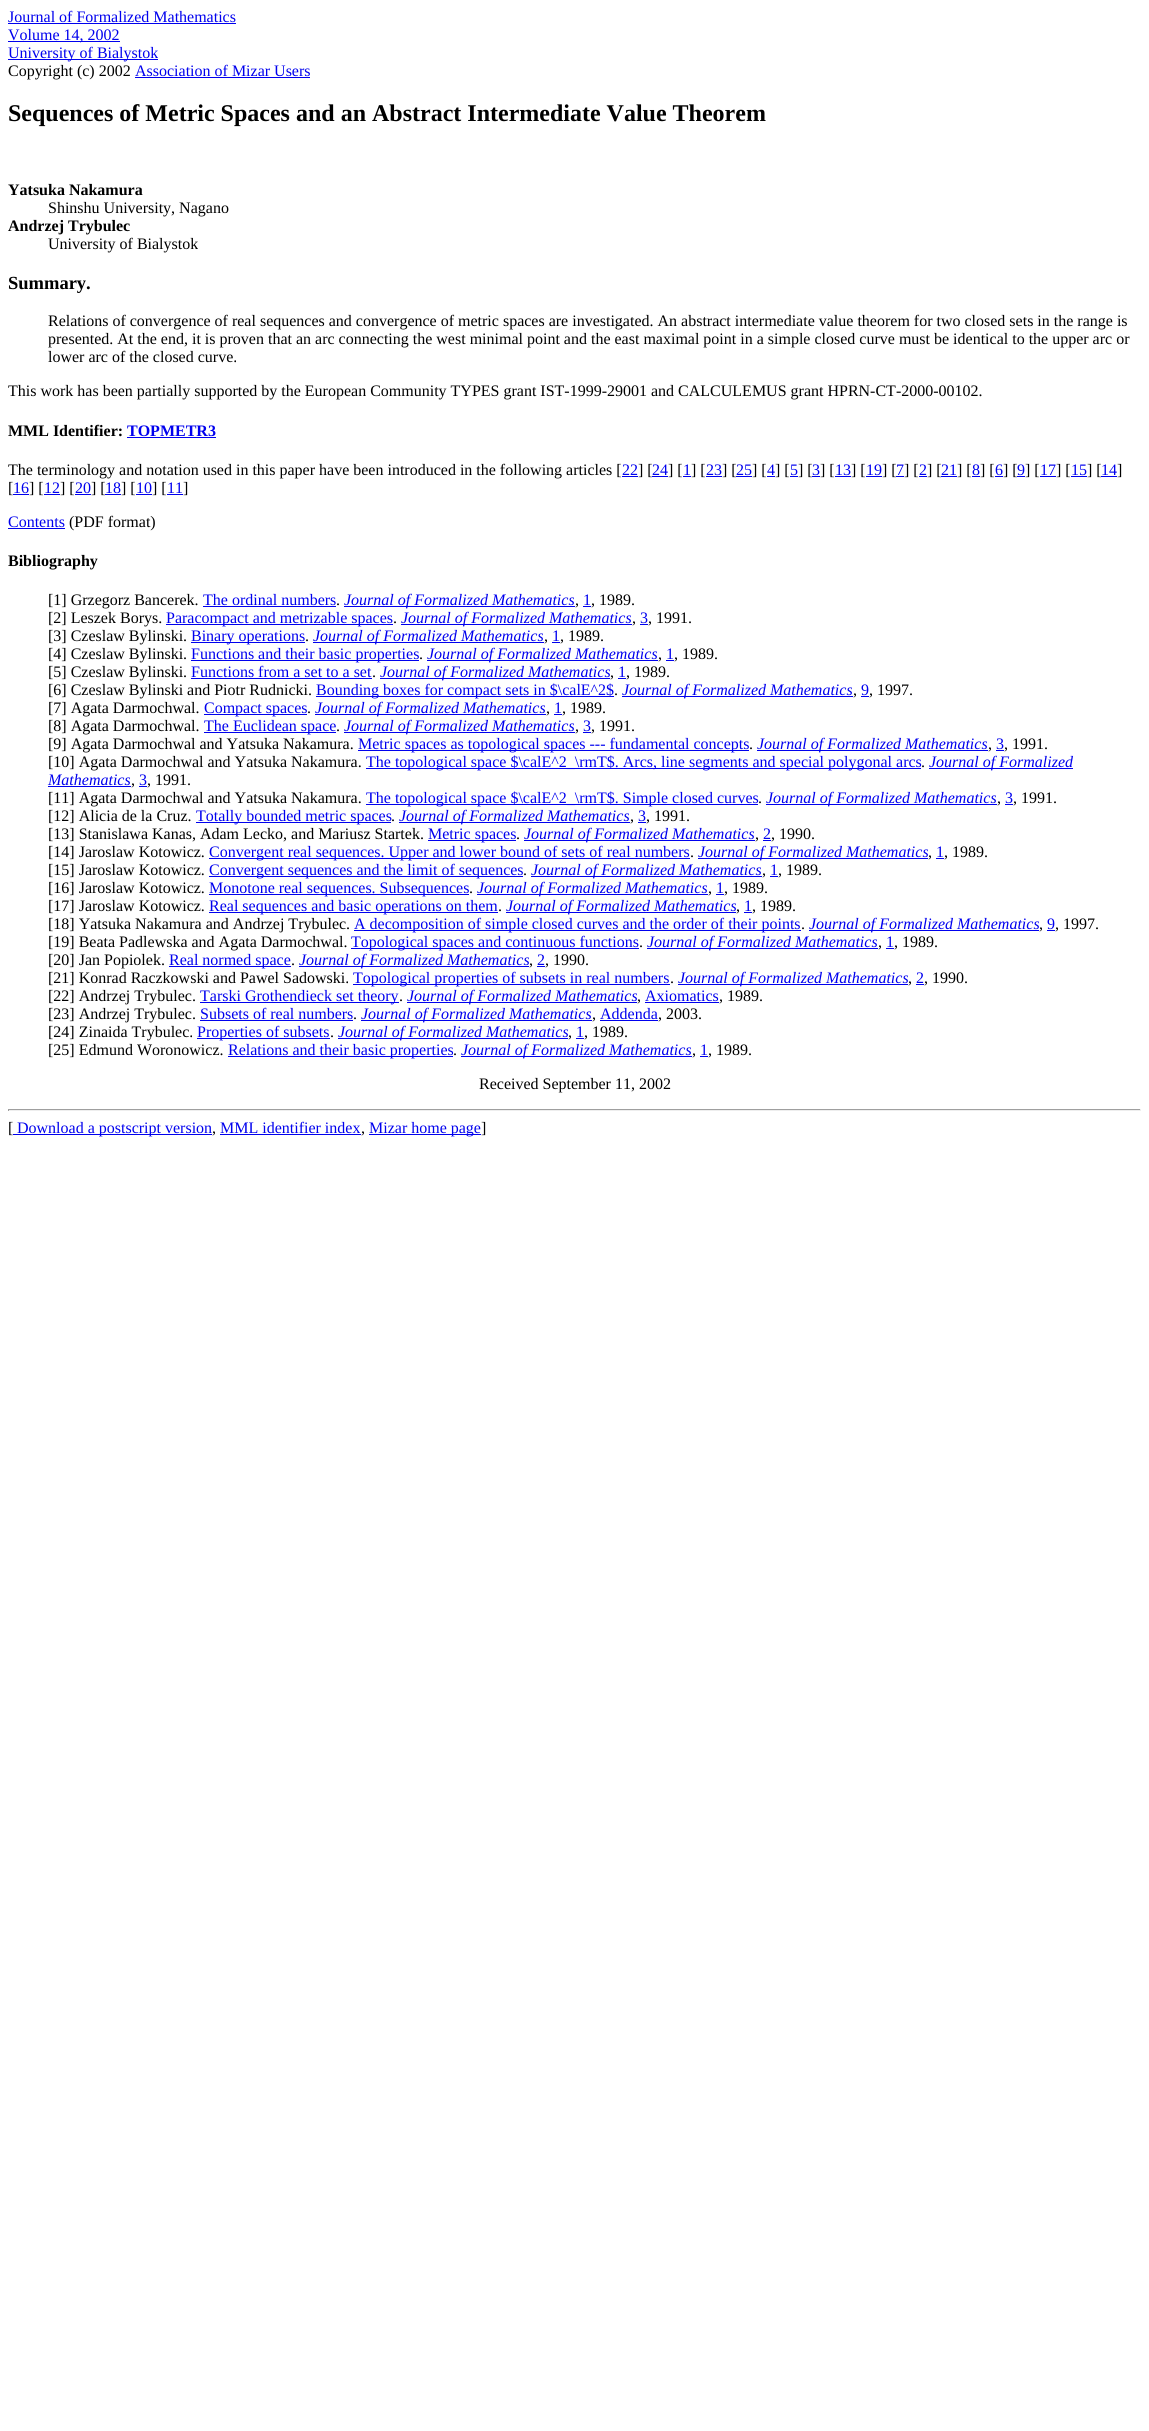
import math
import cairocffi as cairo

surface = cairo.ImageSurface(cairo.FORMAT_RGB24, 1149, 2431)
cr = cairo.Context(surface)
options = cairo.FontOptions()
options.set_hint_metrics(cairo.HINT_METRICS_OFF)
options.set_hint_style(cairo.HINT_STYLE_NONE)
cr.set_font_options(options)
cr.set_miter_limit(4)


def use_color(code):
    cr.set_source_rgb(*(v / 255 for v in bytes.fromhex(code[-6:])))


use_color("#ffffff")
cr.paint()
cr.select_font_face("Liberation Serif")
cr.set_font_size(16)
use_color("#0000ee")
cr.move_to(8, 22)
cr.show_text("Journal of Formalized Mathematics")
cr.rectangle(8, 23, 228, 1)
cr.fill()
cr.rectangle(8, 41, 112, 1)
cr.fill()
cr.move_to(8, 40)
cr.show_text("Volume 14, 2002")
cr.rectangle(8, 59, 150, 1)
cr.fill()
cr.move_to(8, 58)
cr.show_text("University of Bialystok")
use_color("#000000")
cr.move_to(8, 76)
cr.show_text("Copyright (c) 2002")
use_color("#0000ee")
cr.move_to(135, 76)
cr.show_text("Association of Mizar Users")
cr.rectangle(135, 77, 175, 1)
cr.fill()
cr.select_font_face("Liberation Serif", cairo.FONT_SLANT_NORMAL, cairo.FONT_WEIGHT_BOLD)
cr.set_font_size(24)
use_color("#000000")
cr.move_to(8, 121)
cr.show_text("Sequences of Metric Spaces and an Abstract Intermediate Value Theorem")
cr.set_font_size(16)
cr.move_to(8, 195)
cr.show_text("Yatsuka Nakamura")
cr.select_font_face("Liberation Serif")
cr.move_to(48, 213)
cr.show_text("Shinshu University, Nagano")
cr.select_font_face("Liberation Serif", cairo.FONT_SLANT_NORMAL, cairo.FONT_WEIGHT_BOLD)
cr.move_to(8, 231)
cr.show_text("Andrzej Trybulec")
cr.select_font_face("Liberation Serif")
cr.move_to(48, 249)
cr.show_text("University of Bialystok")
cr.select_font_face("Liberation Serif", cairo.FONT_SLANT_NORMAL, cairo.FONT_WEIGHT_BOLD)
cr.set_font_size(18.5)
cr.move_to(8, 289)
cr.show_text("Summary.")
cr.select_font_face("Liberation Serif")
cr.set_font_size(16)
cr.move_to(48, 326)
cr.show_text("Relations of convergence of real sequences and convergence of metric spaces are investigated. An abstract intermediate value theorem for two closed sets in the range is")
cr.move_to(48, 344)
cr.show_text("presented. At the end, it is proven that an arc connecting the west minimal point and the east maximal point in a simple closed curve must be identical to the upper arc or")
cr.move_to(48, 362)
cr.show_text("lower arc of the closed curve.")
cr.move_to(8, 396)
cr.show_text("This work has been partially supported by the European Community TYPES grant IST-1999-29001 and CALCULEMUS grant HPRN-CT-2000-00102.")
cr.select_font_face("Liberation Serif", cairo.FONT_SLANT_NORMAL, cairo.FONT_WEIGHT_BOLD)
cr.move_to(8, 436)
cr.show_text("MML Identifier:")
use_color("#0000ee")
cr.move_to(127, 436)
cr.show_text("TOPMETR3")
cr.rectangle(127, 437, 89, 1)
cr.fill()
cr.select_font_face("Liberation Serif")
use_color("#000000")
cr.move_to(8, 475)
cr.show_text("The terminology and notation used in this paper have been introduced in the following articles [")
use_color("#0000ee")
cr.move_to(622, 475)
cr.show_text("22")
cr.rectangle(622, 476, 16, 1)
cr.fill()
use_color("#000000")
cr.move_to(638, 475)
cr.show_text("] [")
use_color("#0000ee")
cr.move_to(652, 475)
cr.show_text("24")
cr.rectangle(652, 476, 16, 1)
cr.fill()
use_color("#000000")
cr.move_to(668, 475)
cr.show_text("] [")
use_color("#0000ee")
cr.move_to(683, 475)
cr.show_text("1")
cr.rectangle(683, 476, 8, 1)
cr.fill()
use_color("#000000")
cr.move_to(691, 475)
cr.show_text("] [")
use_color("#0000ee")
cr.move_to(706, 475)
cr.show_text("23")
cr.rectangle(706, 476, 16, 1)
cr.fill()
use_color("#000000")
cr.move_to(722, 475)
cr.show_text("] [")
use_color("#0000ee")
cr.move_to(736, 475)
cr.show_text("25")
cr.rectangle(736, 476, 16, 1)
cr.fill()
use_color("#000000")
cr.move_to(752, 475)
cr.show_text("] [")
use_color("#0000ee")
cr.move_to(767, 475)
cr.show_text("4")
cr.rectangle(767, 476, 8, 1)
cr.fill()
use_color("#000000")
cr.move_to(775, 475)
cr.show_text("] [")
use_color("#0000ee")
cr.move_to(790, 475)
cr.show_text("5")
cr.rectangle(790, 476, 8, 1)
cr.fill()
use_color("#000000")
cr.move_to(798, 475)
cr.show_text("] [")
use_color("#0000ee")
cr.move_to(812, 475)
cr.show_text("3")
cr.rectangle(812, 476, 8, 1)
cr.fill()
use_color("#000000")
cr.move_to(820, 475)
cr.show_text("] [")
use_color("#0000ee")
cr.move_to(835, 475)
cr.show_text("13")
cr.rectangle(835, 476, 16, 1)
cr.fill()
use_color("#000000")
cr.move_to(851, 475)
cr.show_text("] [")
use_color("#0000ee")
cr.move_to(866, 475)
cr.show_text("19")
cr.rectangle(866, 476, 16, 1)
cr.fill()
use_color("#000000")
cr.move_to(882, 475)
cr.show_text("] [")
use_color("#0000ee")
cr.move_to(896, 475)
cr.show_text("7")
cr.rectangle(896, 476, 8, 1)
cr.fill()
use_color("#000000")
cr.move_to(904, 475)
cr.show_text("] [")
use_color("#0000ee")
cr.move_to(919, 475)
cr.show_text("2")
cr.rectangle(919, 476, 8, 1)
cr.fill()
use_color("#000000")
cr.move_to(927, 475)
cr.show_text("] [")
use_color("#0000ee")
cr.move_to(941, 475)
cr.show_text("21")
cr.rectangle(941, 476, 16, 1)
cr.fill()
use_color("#000000")
cr.move_to(957, 475)
cr.show_text("] [")
use_color("#0000ee")
cr.move_to(972, 475)
cr.show_text("8")
cr.rectangle(972, 476, 8, 1)
cr.fill()
use_color("#000000")
cr.move_to(980, 475)
cr.show_text("] [")
use_color("#0000ee")
cr.move_to(995, 475)
cr.show_text("6")
cr.rectangle(995, 476, 8, 1)
cr.fill()
use_color("#000000")
cr.move_to(1003, 475)
cr.show_text("] [")
use_color("#0000ee")
cr.move_to(1017, 475)
cr.show_text("9")
cr.rectangle(1017, 476, 8, 1)
cr.fill()
use_color("#000000")
cr.move_to(1025, 475)
cr.show_text("] [")
use_color("#0000ee")
cr.move_to(1040, 475)
cr.show_text("17")
cr.rectangle(1040, 476, 16, 1)
cr.fill()
use_color("#000000")
cr.move_to(1056, 475)
cr.show_text("] [")
use_color("#0000ee")
cr.move_to(1071, 475)
cr.show_text("15")
cr.rectangle(1071, 476, 16, 1)
cr.fill()
use_color("#000000")
cr.move_to(1087, 475)
cr.show_text("] [")
use_color("#0000ee")
cr.move_to(1101, 475)
cr.show_text("14")
cr.rectangle(1101, 476, 16, 1)
cr.fill()
use_color("#000000")
cr.move_to(1117, 475)
cr.show_text("]")
cr.move_to(8, 493)
cr.show_text("[")
use_color("#0000ee")
cr.move_to(13, 493)
cr.show_text("16")
cr.rectangle(13, 494, 16, 1)
cr.fill()
use_color("#000000")
cr.move_to(29, 493)
cr.show_text("] [")
use_color("#0000ee")
cr.move_to(44, 493)
cr.show_text("12")
cr.rectangle(44, 494, 16, 1)
cr.fill()
use_color("#000000")
cr.move_to(60, 493)
cr.show_text("] [")
use_color("#0000ee")
cr.move_to(75, 493)
cr.show_text("20")
cr.rectangle(75, 494, 16, 1)
cr.fill()
use_color("#000000")
cr.move_to(91, 493)
cr.show_text("] [")
use_color("#0000ee")
cr.move_to(105, 493)
cr.show_text("18")
cr.rectangle(105, 494, 16, 1)
cr.fill()
use_color("#000000")
cr.move_to(121, 493)
cr.show_text("] [")
use_color("#0000ee")
cr.move_to(136, 493)
cr.show_text("10")
cr.rectangle(136, 494, 16, 1)
cr.fill()
use_color("#000000")
cr.move_to(152, 493)
cr.show_text("] [")
use_color("#0000ee")
cr.move_to(167, 493)
cr.show_text("11")
cr.rectangle(167, 494, 16, 1)
cr.fill()
use_color("#000000")
cr.move_to(183, 493)
cr.show_text("]")
use_color("#0000ee")
cr.move_to(8, 527)
cr.show_text("Contents")
cr.rectangle(8, 528, 57, 1)
cr.fill()
use_color("#000000")
cr.move_to(69, 527)
cr.show_text("(PDF format)")
cr.select_font_face("Liberation Serif", cairo.FONT_SLANT_NORMAL, cairo.FONT_WEIGHT_BOLD)
cr.move_to(8, 566)
cr.show_text("Bibliography")
cr.select_font_face("Liberation Serif")
cr.move_to(48, 605)
cr.show_text("[1] Grzegorz Bancerek.")
use_color("#0000ee")
cr.move_to(203, 605)
cr.show_text("The ordinal numbers")
cr.rectangle(203, 606, 133, 1)
cr.fill()
use_color("#000000")
cr.move_to(336, 605)
cr.show_text(".")
use_color("#0000ee")
cr.rectangle(344, 606, 231, 1)
cr.fill()
cr.select_font_face("Liberation Serif", cairo.FONT_SLANT_ITALIC)
cr.move_to(344, 605)
cr.show_text("Journal of Formalized Mathematics")
cr.select_font_face("Liberation Serif")
use_color("#000000")
cr.move_to(575, 605)
cr.show_text(",")
use_color("#0000ee")
cr.move_to(583, 605)
cr.show_text("1")
cr.rectangle(583, 606, 8, 1)
cr.fill()
use_color("#000000")
cr.move_to(591, 605)
cr.show_text(", 1989.")
cr.move_to(48, 623)
cr.show_text("[2] Leszek Borys.")
use_color("#0000ee")
cr.rectangle(166, 624, 227, 1)
cr.fill()
cr.move_to(166, 623)
cr.show_text("Paracompact and metrizable spaces")
use_color("#000000")
cr.move_to(393, 623)
cr.show_text(".")
use_color("#0000ee")
cr.rectangle(401, 624, 231, 1)
cr.fill()
cr.select_font_face("Liberation Serif", cairo.FONT_SLANT_ITALIC)
cr.move_to(401, 623)
cr.show_text("Journal of Formalized Mathematics")
cr.select_font_face("Liberation Serif")
use_color("#000000")
cr.move_to(632, 623)
cr.show_text(",")
use_color("#0000ee")
cr.move_to(640, 623)
cr.show_text("3")
cr.rectangle(640, 624, 8, 1)
cr.fill()
use_color("#000000")
cr.move_to(648, 623)
cr.show_text(", 1991.")
cr.move_to(48, 641)
cr.show_text("[3] Czeslaw Bylinski.")
use_color("#0000ee")
cr.rectangle(191, 642, 114, 1)
cr.fill()
cr.move_to(191, 641)
cr.show_text("Binary operations")
use_color("#000000")
cr.move_to(305, 641)
cr.show_text(".")
use_color("#0000ee")
cr.rectangle(313, 642, 231, 1)
cr.fill()
cr.select_font_face("Liberation Serif", cairo.FONT_SLANT_ITALIC)
cr.move_to(313, 641)
cr.show_text("Journal of Formalized Mathematics")
cr.select_font_face("Liberation Serif")
use_color("#000000")
cr.move_to(544, 641)
cr.show_text(",")
use_color("#0000ee")
cr.move_to(552, 641)
cr.show_text("1")
cr.rectangle(552, 642, 8, 1)
cr.fill()
use_color("#000000")
cr.move_to(560, 641)
cr.show_text(", 1989.")
cr.move_to(48, 659)
cr.show_text("[4] Czeslaw Bylinski.")
use_color("#0000ee")
cr.rectangle(191, 660, 228, 1)
cr.fill()
cr.move_to(191, 659)
cr.show_text("Functions and their basic properties")
use_color("#000000")
cr.move_to(419, 659)
cr.show_text(".")
use_color("#0000ee")
cr.rectangle(427, 660, 231, 1)
cr.fill()
cr.select_font_face("Liberation Serif", cairo.FONT_SLANT_ITALIC)
cr.move_to(427, 659)
cr.show_text("Journal of Formalized Mathematics")
cr.select_font_face("Liberation Serif")
use_color("#000000")
cr.move_to(658, 659)
cr.show_text(",")
use_color("#0000ee")
cr.move_to(666, 659)
cr.show_text("1")
cr.rectangle(666, 660, 8, 1)
cr.fill()
use_color("#000000")
cr.move_to(674, 659)
cr.show_text(", 1989.")
cr.move_to(48, 677)
cr.show_text("[5] Czeslaw Bylinski.")
use_color("#0000ee")
cr.move_to(191, 677)
cr.show_text("Functions from a set to a set")
cr.rectangle(191, 678, 181, 1)
cr.fill()
use_color("#000000")
cr.move_to(372, 677)
cr.show_text(".")
use_color("#0000ee")
cr.rectangle(380, 678, 230, 1)
cr.fill()
cr.select_font_face("Liberation Serif", cairo.FONT_SLANT_ITALIC)
cr.move_to(380, 677)
cr.show_text("Journal of Formalized Mathematics")
cr.select_font_face("Liberation Serif")
use_color("#000000")
cr.move_to(610, 677)
cr.show_text(",")
use_color("#0000ee")
cr.move_to(618, 677)
cr.show_text("1")
cr.rectangle(618, 678, 8, 1)
cr.fill()
use_color("#000000")
cr.move_to(626, 677)
cr.show_text(", 1989.")
cr.move_to(48, 695)
cr.show_text("[6] Czeslaw Bylinski and Piotr Rudnicki.")
use_color("#0000ee")
cr.rectangle(316, 696, 298, 1)
cr.fill()
cr.move_to(316, 695)
cr.show_text("Bounding boxes for compact sets in $\\calE^2$")
use_color("#000000")
cr.move_to(614, 695)
cr.show_text(".")
use_color("#0000ee")
cr.rectangle(622, 696, 231, 1)
cr.fill()
cr.select_font_face("Liberation Serif", cairo.FONT_SLANT_ITALIC)
cr.move_to(622, 695)
cr.show_text("Journal of Formalized Mathematics")
cr.select_font_face("Liberation Serif")
use_color("#000000")
cr.move_to(853, 695)
cr.show_text(",")
use_color("#0000ee")
cr.move_to(861, 695)
cr.show_text("9")
cr.rectangle(861, 696, 8, 1)
cr.fill()
use_color("#000000")
cr.move_to(869, 695)
cr.show_text(", 1997.")
cr.move_to(48, 713)
cr.show_text("[7] Agata Darmochwal.")
use_color("#0000ee")
cr.rectangle(204, 714, 103, 1)
cr.fill()
cr.move_to(204, 713)
cr.show_text("Compact spaces")
use_color("#000000")
cr.move_to(307, 713)
cr.show_text(".")
use_color("#0000ee")
cr.rectangle(315, 714, 231, 1)
cr.fill()
cr.select_font_face("Liberation Serif", cairo.FONT_SLANT_ITALIC)
cr.move_to(315, 713)
cr.show_text("Journal of Formalized Mathematics")
cr.select_font_face("Liberation Serif")
use_color("#000000")
cr.move_to(546, 713)
cr.show_text(",")
use_color("#0000ee")
cr.move_to(554, 713)
cr.show_text("1")
cr.rectangle(554, 714, 8, 1)
cr.fill()
use_color("#000000")
cr.move_to(562, 713)
cr.show_text(", 1989.")
cr.move_to(48, 731)
cr.show_text("[8] Agata Darmochwal.")
use_color("#0000ee")
cr.rectangle(204, 732, 132, 1)
cr.fill()
cr.move_to(204, 731)
cr.show_text("The Euclidean space")
use_color("#000000")
cr.move_to(336, 731)
cr.show_text(".")
use_color("#0000ee")
cr.rectangle(344, 732, 231, 1)
cr.fill()
cr.select_font_face("Liberation Serif", cairo.FONT_SLANT_ITALIC)
cr.move_to(344, 731)
cr.show_text("Journal of Formalized Mathematics")
cr.select_font_face("Liberation Serif")
use_color("#000000")
cr.move_to(575, 731)
cr.show_text(",")
use_color("#0000ee")
cr.move_to(583, 731)
cr.show_text("3")
cr.rectangle(583, 732, 8, 1)
cr.fill()
use_color("#000000")
cr.move_to(591, 731)
cr.show_text(", 1991.")
cr.move_to(48, 749)
cr.show_text("[9] Agata Darmochwal and Yatsuka Nakamura.")
use_color("#0000ee")
cr.rectangle(358, 750, 391, 1)
cr.fill()
cr.move_to(358, 749)
cr.show_text("Metric spaces as topological spaces --- fundamental concepts")
use_color("#000000")
cr.move_to(749, 749)
cr.show_text(".")
use_color("#0000ee")
cr.rectangle(757, 750, 231, 1)
cr.fill()
cr.select_font_face("Liberation Serif", cairo.FONT_SLANT_ITALIC)
cr.move_to(757, 749)
cr.show_text("Journal of Formalized Mathematics")
cr.select_font_face("Liberation Serif")
use_color("#000000")
cr.move_to(988, 749)
cr.show_text(",")
use_color("#0000ee")
cr.move_to(996, 749)
cr.show_text("3")
cr.rectangle(996, 750, 8, 1)
cr.fill()
use_color("#000000")
cr.move_to(1004, 749)
cr.show_text(", 1991.")
cr.move_to(48, 767)
cr.show_text("[10] Agata Darmochwal and Yatsuka Nakamura.")
use_color("#0000ee")
cr.rectangle(366, 768, 555, 1)
cr.fill()
cr.move_to(366, 767)
cr.show_text("The topological space $\\calE^2_\\rmT$. Arcs, line segments and special polygonal arcs")
use_color("#000000")
cr.move_to(921, 767)
cr.show_text(".")
use_color("#0000ee")
cr.rectangle(929, 768, 144, 1)
cr.fill()
cr.select_font_face("Liberation Serif", cairo.FONT_SLANT_ITALIC)
cr.move_to(929, 767)
cr.show_text("Journal of Formalized")
cr.move_to(48, 785)
cr.show_text("Mathematics")
cr.rectangle(48, 786, 83, 1)
cr.fill()
cr.select_font_face("Liberation Serif")
use_color("#000000")
cr.move_to(131, 785)
cr.show_text(",")
use_color("#0000ee")
cr.move_to(139, 785)
cr.show_text("3")
cr.rectangle(139, 786, 8, 1)
cr.fill()
use_color("#000000")
cr.move_to(147, 785)
cr.show_text(", 1991.")
cr.move_to(48, 803)
cr.show_text("[11] Agata Darmochwal and Yatsuka Nakamura.")
use_color("#0000ee")
cr.rectangle(366, 804, 392, 1)
cr.fill()
cr.move_to(366, 803)
cr.show_text("The topological space $\\calE^2_\\rmT$. Simple closed curves")
use_color("#000000")
cr.move_to(758, 803)
cr.show_text(".")
use_color("#0000ee")
cr.rectangle(766, 804, 231, 1)
cr.fill()
cr.select_font_face("Liberation Serif", cairo.FONT_SLANT_ITALIC)
cr.move_to(766, 803)
cr.show_text("Journal of Formalized Mathematics")
cr.select_font_face("Liberation Serif")
use_color("#000000")
cr.move_to(997, 803)
cr.show_text(",")
use_color("#0000ee")
cr.move_to(1005, 803)
cr.show_text("3")
cr.rectangle(1005, 804, 8, 1)
cr.fill()
use_color("#000000")
cr.move_to(1013, 803)
cr.show_text(", 1991.")
cr.move_to(48, 821)
cr.show_text("[12] Alicia de la Cruz.")
use_color("#0000ee")
cr.rectangle(196, 822, 195, 1)
cr.fill()
cr.move_to(196, 821)
cr.show_text("Totally bounded metric spaces")
use_color("#000000")
cr.move_to(391, 821)
cr.show_text(".")
use_color("#0000ee")
cr.rectangle(399, 822, 231, 1)
cr.fill()
cr.select_font_face("Liberation Serif", cairo.FONT_SLANT_ITALIC)
cr.move_to(399, 821)
cr.show_text("Journal of Formalized Mathematics")
cr.select_font_face("Liberation Serif")
use_color("#000000")
cr.move_to(630, 821)
cr.show_text(",")
use_color("#0000ee")
cr.move_to(638, 821)
cr.show_text("3")
cr.rectangle(638, 822, 8, 1)
cr.fill()
use_color("#000000")
cr.move_to(646, 821)
cr.show_text(", 1991.")
cr.move_to(48, 839)
cr.show_text("[13] Stanislawa Kanas, Adam Lecko, and Mariusz Startek.")
use_color("#0000ee")
cr.rectangle(428, 840, 88, 1)
cr.fill()
cr.move_to(428, 839)
cr.show_text("Metric spaces")
use_color("#000000")
cr.move_to(516, 839)
cr.show_text(".")
use_color("#0000ee")
cr.rectangle(524, 840, 231, 1)
cr.fill()
cr.select_font_face("Liberation Serif", cairo.FONT_SLANT_ITALIC)
cr.move_to(524, 839)
cr.show_text("Journal of Formalized Mathematics")
cr.select_font_face("Liberation Serif")
use_color("#000000")
cr.move_to(755, 839)
cr.show_text(",")
use_color("#0000ee")
cr.move_to(763, 839)
cr.show_text("2")
cr.rectangle(763, 840, 8, 1)
cr.fill()
use_color("#000000")
cr.move_to(771, 839)
cr.show_text(", 1990.")
cr.move_to(48, 857)
cr.show_text("[14] Jaroslaw Kotowicz.")
use_color("#0000ee")
cr.rectangle(209, 858, 481, 1)
cr.fill()
cr.move_to(209, 857)
cr.show_text("Convergent real sequences. Upper and lower bound of sets of real numbers")
use_color("#000000")
cr.move_to(690, 857)
cr.show_text(".")
use_color("#0000ee")
cr.rectangle(698, 858, 230, 1)
cr.fill()
cr.select_font_face("Liberation Serif", cairo.FONT_SLANT_ITALIC)
cr.move_to(698, 857)
cr.show_text("Journal of Formalized Mathematics")
cr.select_font_face("Liberation Serif")
use_color("#000000")
cr.move_to(928, 857)
cr.show_text(",")
use_color("#0000ee")
cr.move_to(936, 857)
cr.show_text("1")
cr.rectangle(936, 858, 8, 1)
cr.fill()
use_color("#000000")
cr.move_to(944, 857)
cr.show_text(", 1989.")
cr.move_to(48, 875)
cr.show_text("[15] Jaroslaw Kotowicz.")
use_color("#0000ee")
cr.rectangle(209, 876, 314, 1)
cr.fill()
cr.move_to(209, 875)
cr.show_text("Convergent sequences and the limit of sequences")
use_color("#000000")
cr.move_to(523, 875)
cr.show_text(".")
use_color("#0000ee")
cr.rectangle(531, 876, 231, 1)
cr.fill()
cr.select_font_face("Liberation Serif", cairo.FONT_SLANT_ITALIC)
cr.move_to(531, 875)
cr.show_text("Journal of Formalized Mathematics")
cr.select_font_face("Liberation Serif")
use_color("#000000")
cr.move_to(762, 875)
cr.show_text(",")
use_color("#0000ee")
cr.move_to(770, 875)
cr.show_text("1")
cr.rectangle(770, 876, 8, 1)
cr.fill()
use_color("#000000")
cr.move_to(778, 875)
cr.show_text(", 1989.")
cr.move_to(48, 893)
cr.show_text("[16] Jaroslaw Kotowicz.")
use_color("#0000ee")
cr.rectangle(209, 894, 260, 1)
cr.fill()
cr.move_to(209, 893)
cr.show_text("Monotone real sequences. Subsequences")
use_color("#000000")
cr.move_to(469, 893)
cr.show_text(".")
use_color("#0000ee")
cr.rectangle(477, 894, 231, 1)
cr.fill()
cr.select_font_face("Liberation Serif", cairo.FONT_SLANT_ITALIC)
cr.move_to(477, 893)
cr.show_text("Journal of Formalized Mathematics")
cr.select_font_face("Liberation Serif")
use_color("#000000")
cr.move_to(708, 893)
cr.show_text(",")
use_color("#0000ee")
cr.move_to(716, 893)
cr.show_text("1")
cr.rectangle(716, 894, 8, 1)
cr.fill()
use_color("#000000")
cr.move_to(724, 893)
cr.show_text(", 1989.")
cr.move_to(48, 911)
cr.show_text("[17] Jaroslaw Kotowicz.")
use_color("#0000ee")
cr.rectangle(209, 912, 289, 1)
cr.fill()
cr.move_to(209, 911)
cr.show_text("Real sequences and basic operations on them")
use_color("#000000")
cr.move_to(498, 911)
cr.show_text(".")
use_color("#0000ee")
cr.rectangle(506, 912, 230, 1)
cr.fill()
cr.select_font_face("Liberation Serif", cairo.FONT_SLANT_ITALIC)
cr.move_to(506, 911)
cr.show_text("Journal of Formalized Mathematics")
cr.select_font_face("Liberation Serif")
use_color("#000000")
cr.move_to(736, 911)
cr.show_text(",")
use_color("#0000ee")
cr.move_to(744, 911)
cr.show_text("1")
cr.rectangle(744, 912, 8, 1)
cr.fill()
use_color("#000000")
cr.move_to(752, 911)
cr.show_text(", 1989.")
cr.move_to(48, 929)
cr.show_text("[18] Yatsuka Nakamura and Andrzej Trybulec.")
use_color("#0000ee")
cr.rectangle(354, 930, 447, 1)
cr.fill()
cr.move_to(354, 929)
cr.show_text("A decomposition of simple closed curves and the order of their points")
use_color("#000000")
cr.move_to(801, 929)
cr.show_text(".")
use_color("#0000ee")
cr.rectangle(809, 930, 230, 1)
cr.fill()
cr.select_font_face("Liberation Serif", cairo.FONT_SLANT_ITALIC)
cr.move_to(809, 929)
cr.show_text("Journal of Formalized Mathematics")
cr.select_font_face("Liberation Serif")
use_color("#000000")
cr.move_to(1039, 929)
cr.show_text(",")
use_color("#0000ee")
cr.move_to(1047, 929)
cr.show_text("9")
cr.rectangle(1047, 930, 8, 1)
cr.fill()
use_color("#000000")
cr.move_to(1055, 929)
cr.show_text(", 1997.")
cr.move_to(48, 947)
cr.show_text("[19] Beata Padlewska and Agata Darmochwal.")
use_color("#0000ee")
cr.rectangle(351, 948, 288, 1)
cr.fill()
cr.move_to(351, 947)
cr.show_text("Topological spaces and continuous functions")
use_color("#000000")
cr.move_to(639, 947)
cr.show_text(".")
use_color("#0000ee")
cr.rectangle(647, 948, 231, 1)
cr.fill()
cr.select_font_face("Liberation Serif", cairo.FONT_SLANT_ITALIC)
cr.move_to(647, 947)
cr.show_text("Journal of Formalized Mathematics")
cr.select_font_face("Liberation Serif")
use_color("#000000")
cr.move_to(878, 947)
cr.show_text(",")
use_color("#0000ee")
cr.move_to(886, 947)
cr.show_text("1")
cr.rectangle(886, 948, 8, 1)
cr.fill()
use_color("#000000")
cr.move_to(894, 947)
cr.show_text(", 1989.")
cr.move_to(48, 965)
cr.show_text("[20] Jan Popiolek.")
use_color("#0000ee")
cr.rectangle(169, 966, 122, 1)
cr.fill()
cr.move_to(169, 965)
cr.show_text("Real normed space")
use_color("#000000")
cr.move_to(291, 965)
cr.show_text(".")
use_color("#0000ee")
cr.rectangle(299, 966, 230, 1)
cr.fill()
cr.select_font_face("Liberation Serif", cairo.FONT_SLANT_ITALIC)
cr.move_to(299, 965)
cr.show_text("Journal of Formalized Mathematics")
cr.select_font_face("Liberation Serif")
use_color("#000000")
cr.move_to(529, 965)
cr.show_text(",")
use_color("#0000ee")
cr.move_to(537, 965)
cr.show_text("2")
cr.rectangle(537, 966, 8, 1)
cr.fill()
use_color("#000000")
cr.move_to(545, 965)
cr.show_text(", 1990.")
cr.move_to(48, 983)
cr.show_text("[21] Konrad Raczkowski and Pawel Sadowski.")
use_color("#0000ee")
cr.rectangle(353, 984, 317, 1)
cr.fill()
cr.move_to(353, 983)
cr.show_text("Topological properties of subsets in real numbers")
use_color("#000000")
cr.move_to(670, 983)
cr.show_text(".")
use_color("#0000ee")
cr.rectangle(678, 984, 230, 1)
cr.fill()
cr.select_font_face("Liberation Serif", cairo.FONT_SLANT_ITALIC)
cr.move_to(678, 983)
cr.show_text("Journal of Formalized Mathematics")
cr.select_font_face("Liberation Serif")
use_color("#000000")
cr.move_to(908, 983)
cr.show_text(",")
use_color("#0000ee")
cr.move_to(916, 983)
cr.show_text("2")
cr.rectangle(916, 984, 8, 1)
cr.fill()
use_color("#000000")
cr.move_to(924, 983)
cr.show_text(", 1990.")
cr.move_to(48, 1001)
cr.show_text("[22] Andrzej Trybulec.")
use_color("#0000ee")
cr.rectangle(200, 1002, 199, 1)
cr.fill()
cr.move_to(200, 1001)
cr.show_text("Tarski Grothendieck set theory")
use_color("#000000")
cr.move_to(399, 1001)
cr.show_text(".")
use_color("#0000ee")
cr.rectangle(407, 1002, 230, 1)
cr.fill()
cr.select_font_face("Liberation Serif", cairo.FONT_SLANT_ITALIC)
cr.move_to(407, 1001)
cr.show_text("Journal of Formalized Mathematics")
cr.select_font_face("Liberation Serif")
use_color("#000000")
cr.move_to(637, 1001)
cr.show_text(",")
use_color("#0000ee")
cr.move_to(645, 1001)
cr.show_text("Axiomatics")
cr.rectangle(645, 1002, 74, 1)
cr.fill()
use_color("#000000")
cr.move_to(719, 1001)
cr.show_text(", 1989.")
cr.move_to(48, 1019)
cr.show_text("[23] Andrzej Trybulec.")
use_color("#0000ee")
cr.move_to(200, 1019)
cr.show_text("Subsets of real numbers")
cr.rectangle(200, 1020, 153, 1)
cr.fill()
use_color("#000000")
cr.move_to(353, 1019)
cr.show_text(".")
use_color("#0000ee")
cr.rectangle(361, 1020, 231, 1)
cr.fill()
cr.select_font_face("Liberation Serif", cairo.FONT_SLANT_ITALIC)
cr.move_to(361, 1019)
cr.show_text("Journal of Formalized Mathematics")
cr.select_font_face("Liberation Serif")
use_color("#000000")
cr.move_to(592, 1019)
cr.show_text(",")
use_color("#0000ee")
cr.move_to(600, 1019)
cr.show_text("Addenda")
cr.rectangle(600, 1020, 58, 1)
cr.fill()
use_color("#000000")
cr.move_to(658, 1019)
cr.show_text(", 2003.")
cr.move_to(48, 1037)
cr.show_text("[24] Zinaida Trybulec.")
use_color("#0000ee")
cr.rectangle(197, 1038, 133, 1)
cr.fill()
cr.move_to(197, 1037)
cr.show_text("Properties of subsets")
use_color("#000000")
cr.move_to(330, 1037)
cr.show_text(".")
use_color("#0000ee")
cr.rectangle(338, 1038, 230, 1)
cr.fill()
cr.select_font_face("Liberation Serif", cairo.FONT_SLANT_ITALIC)
cr.move_to(338, 1037)
cr.show_text("Journal of Formalized Mathematics")
cr.select_font_face("Liberation Serif")
use_color("#000000")
cr.move_to(568, 1037)
cr.show_text(",")
use_color("#0000ee")
cr.move_to(576, 1037)
cr.show_text("1")
cr.rectangle(576, 1038, 8, 1)
cr.fill()
use_color("#000000")
cr.move_to(584, 1037)
cr.show_text(", 1989.")
cr.move_to(48, 1055)
cr.show_text("[25] Edmund Woronowicz.")
use_color("#0000ee")
cr.rectangle(228, 1056, 225, 1)
cr.fill()
cr.move_to(228, 1055)
cr.show_text("Relations and their basic properties")
use_color("#000000")
cr.move_to(453, 1055)
cr.show_text(".")
use_color("#0000ee")
cr.rectangle(461, 1056, 231, 1)
cr.fill()
cr.select_font_face("Liberation Serif", cairo.FONT_SLANT_ITALIC)
cr.move_to(461, 1055)
cr.show_text("Journal of Formalized Mathematics")
cr.select_font_face("Liberation Serif")
use_color("#000000")
cr.move_to(692, 1055)
cr.show_text(",")
use_color("#0000ee")
cr.move_to(700, 1055)
cr.show_text("1")
cr.rectangle(700, 1056, 8, 1)
cr.fill()
use_color("#000000")
cr.move_to(708, 1055)
cr.show_text(", 1989.")
cr.move_to(479, 1089)
cr.show_text("Received September 11, 2002")
use_color("#9f9f9f")
cr.rectangle(8, 1109, 1133, 1)
cr.fill()
use_color("#eeeeee")
cr.rectangle(1140, 1109, 1, 2)
cr.fill()
cr.rectangle(8, 1110, 1133, 1)
cr.fill()
use_color("#9f9f9f")
cr.rectangle(8, 1109, 1, 2)
cr.fill()
use_color("#000000")
cr.move_to(8, 1133)
cr.show_text("[")
use_color("#0000ee")
cr.rectangle(13, 1134, 199, 1)
cr.fill()
cr.move_to(17, 1133)
cr.show_text("Download a postscript version")
use_color("#000000")
cr.move_to(212, 1133)
cr.show_text(",")
use_color("#0000ee")
cr.move_to(220, 1133)
cr.show_text("MML identifier index")
cr.rectangle(220, 1134, 141, 1)
cr.fill()
use_color("#000000")
cr.move_to(361, 1133)
cr.show_text(",")
use_color("#0000ee")
cr.rectangle(369, 1134, 112, 1)
cr.fill()
cr.move_to(369, 1133)
cr.show_text("Mizar home page")
use_color("#000000")
cr.move_to(481, 1133)
cr.show_text("]")
surface.write_to_png("result.png")
